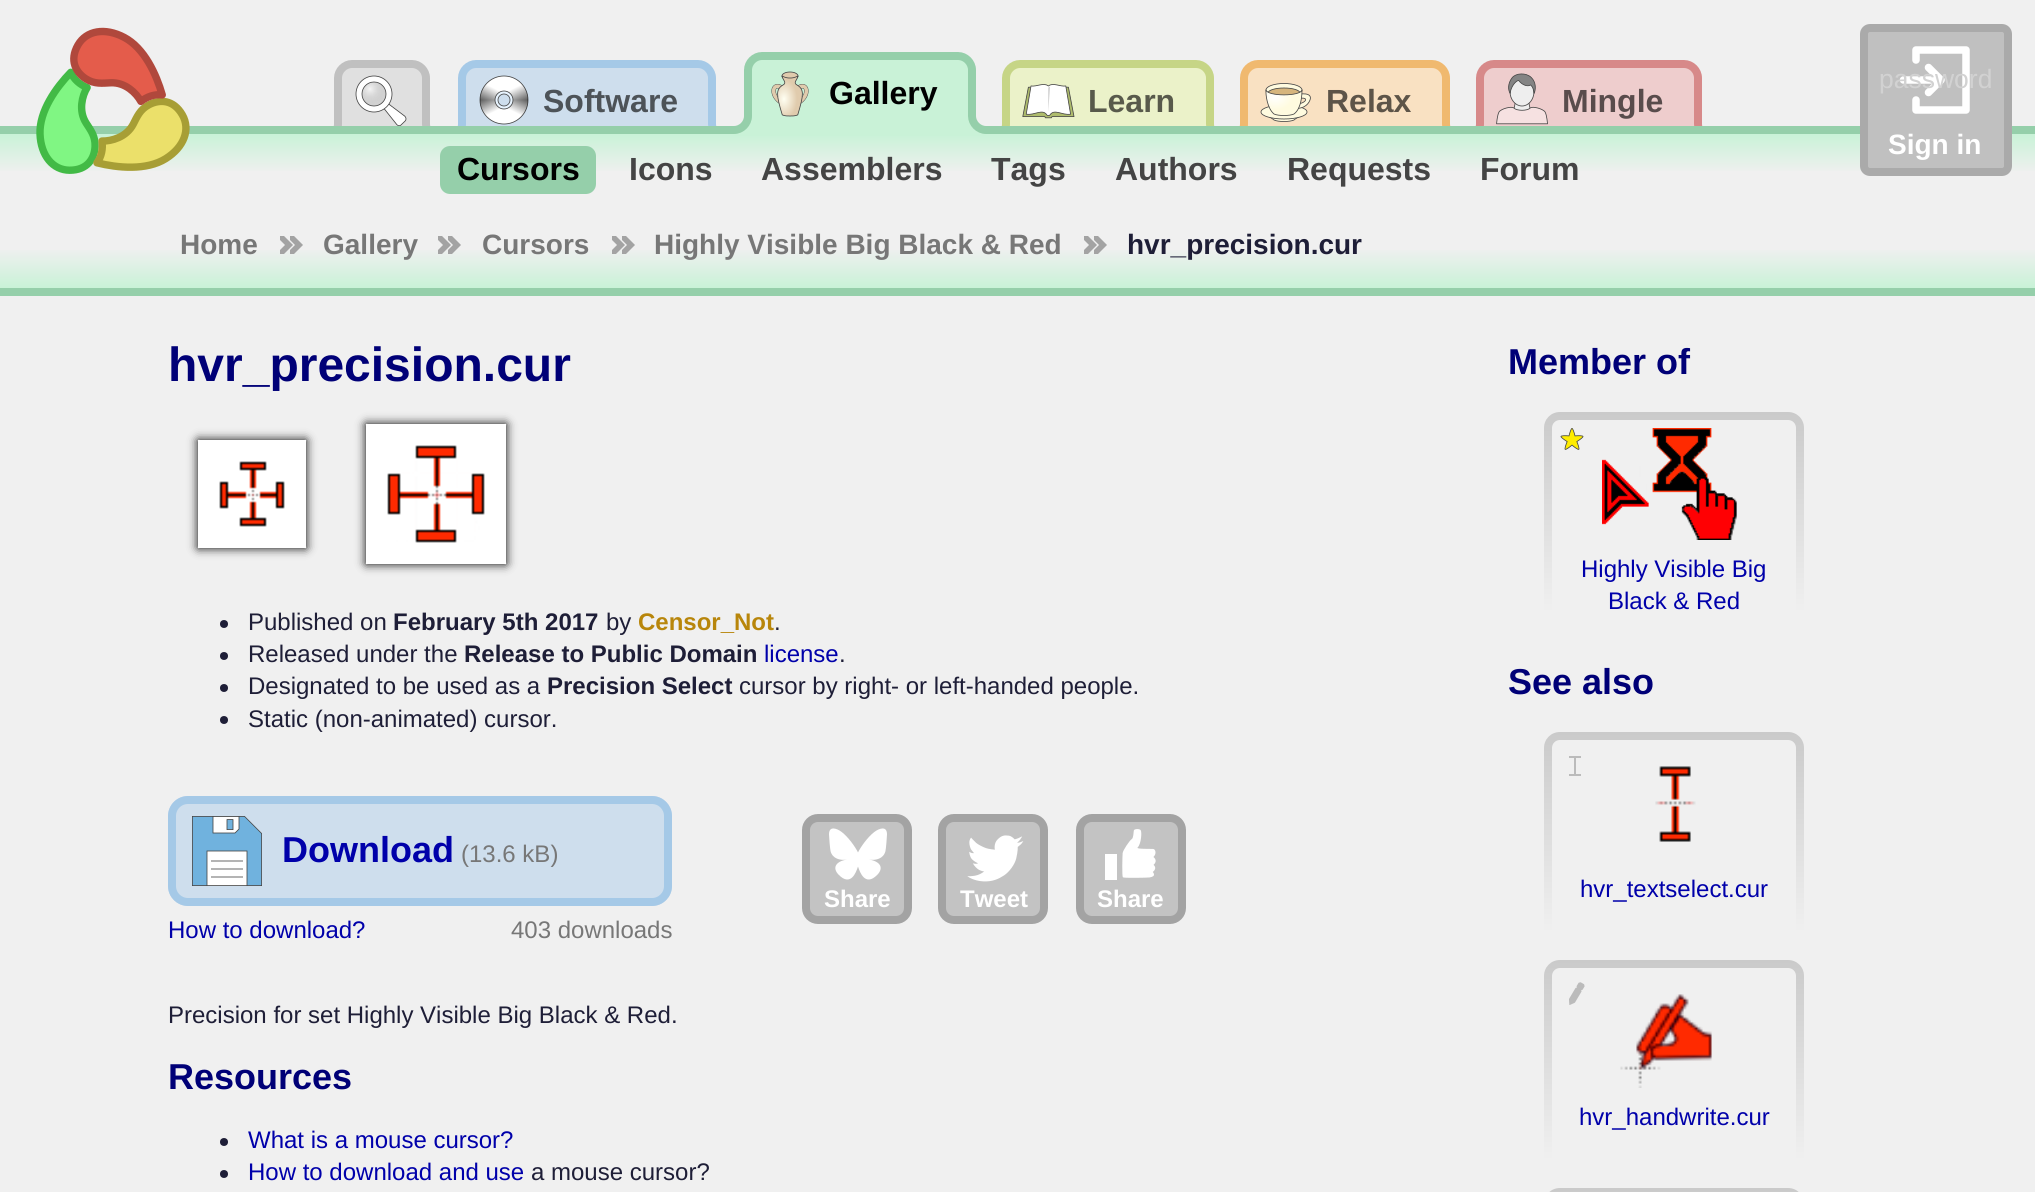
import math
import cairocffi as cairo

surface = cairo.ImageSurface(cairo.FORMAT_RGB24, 2035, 1192)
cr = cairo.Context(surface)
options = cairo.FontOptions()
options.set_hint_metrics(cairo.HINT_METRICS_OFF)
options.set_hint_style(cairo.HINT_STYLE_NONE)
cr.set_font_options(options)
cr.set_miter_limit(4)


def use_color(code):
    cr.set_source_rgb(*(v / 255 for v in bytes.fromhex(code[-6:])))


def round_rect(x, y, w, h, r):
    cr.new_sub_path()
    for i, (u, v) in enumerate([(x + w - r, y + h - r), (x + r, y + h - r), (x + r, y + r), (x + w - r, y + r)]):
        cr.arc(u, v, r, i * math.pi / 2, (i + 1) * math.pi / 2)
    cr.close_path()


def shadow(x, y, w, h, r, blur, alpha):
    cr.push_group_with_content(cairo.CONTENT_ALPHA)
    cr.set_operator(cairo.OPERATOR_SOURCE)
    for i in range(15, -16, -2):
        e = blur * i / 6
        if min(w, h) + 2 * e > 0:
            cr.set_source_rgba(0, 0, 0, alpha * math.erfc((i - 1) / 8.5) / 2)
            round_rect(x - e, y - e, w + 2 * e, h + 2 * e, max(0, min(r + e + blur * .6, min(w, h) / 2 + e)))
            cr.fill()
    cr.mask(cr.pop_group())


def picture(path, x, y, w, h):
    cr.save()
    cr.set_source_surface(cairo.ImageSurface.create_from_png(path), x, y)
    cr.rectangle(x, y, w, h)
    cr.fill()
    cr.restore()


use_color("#f0f0f0")
cr.paint()
use_color("#e0e0e0")
cr.new_path()
cr.move_to(324, 138)
cr.curve_to(332, 138, 338, 132, 338, 124)
cr.line_to(338, 78)
cr.curve_to(338, 70, 344, 64, 352, 64)
cr.line_to(412, 64)
cr.curve_to(420, 64, 426, 70, 426, 78)
cr.line_to(426, 124)
cr.curve_to(426, 132, 432, 138, 440, 138)
cr.line_to(440, 144)
cr.line_to(324, 144)
cr.close_path()
cr.fill()
cr.new_path()
cr.move_to(324, 138)
cr.curve_to(331.5, 138, 338, 131.5, 338, 124)
cr.line_to(338, 78)
cr.curve_to(338, 70.5, 344.5, 64, 352, 64)
cr.line_to(412, 64)
cr.curve_to(419.5, 64, 426, 70.5, 426, 78)
cr.line_to(426, 124)
cr.curve_to(426, 131.5, 432.5, 138, 440, 138)
use_color("#c0c0c0")
cr.set_line_width(8)
cr.stroke()
use_color("#cedeed")
cr.new_path()
cr.move_to(626, 64)
cr.line_to(698, 64)
cr.curve_to(706, 64, 712, 70, 712, 78)
cr.line_to(712, 124)
cr.curve_to(712, 132, 718, 138, 726, 138)
cr.line_to(726, 144)
cr.line_to(626, 144)
cr.close_path()
cr.fill()
cr.new_path()
cr.move_to(626, 64)
cr.line_to(698, 64)
cr.curve_to(705.5, 64, 712, 70.5, 712, 78)
cr.line_to(712, 124)
cr.curve_to(712, 131.5, 718.5, 138, 726, 138)
use_color("#a5c9e7")
cr.stroke()
cr.save()
cr.rectangle(448, 60, 246, 84)
cr.clip()
use_color("#cedeed")
cr.new_path()
cr.move_to(448, 144)
cr.line_to(448, 138)
cr.curve_to(456, 138, 462, 132, 462, 124)
cr.line_to(462, 78)
cr.curve_to(462, 70, 468, 64, 476, 64)
cr.line_to(848, 64)
cr.line_to(848, 144)
cr.close_path()
cr.fill()
cr.new_path()
cr.move_to(448, 138)
cr.curve_to(455.5, 138, 462, 131.5, 462, 124)
cr.line_to(462, 78)
cr.curve_to(462, 70.5, 468.5, 64, 476, 64)
cr.line_to(848, 64)
use_color("#a5c9e7")
cr.stroke()
cr.restore()
use_color("#ebf2c9")
cr.new_path()
cr.move_to(1124, 64)
cr.line_to(1196, 64)
cr.curve_to(1204, 64, 1210, 70, 1210, 78)
cr.line_to(1210, 124)
cr.curve_to(1210, 132, 1216, 138, 1224, 138)
cr.line_to(1224, 144)
cr.line_to(1124, 144)
cr.close_path()
cr.fill()
cr.new_path()
cr.move_to(1124, 64)
cr.line_to(1196, 64)
cr.curve_to(1203.5, 64, 1210, 70.5, 1210, 78)
cr.line_to(1210, 124)
cr.curve_to(1210, 131.5, 1216.5, 138, 1224, 138)
use_color("#c6d586")
cr.stroke()
cr.save()
cr.rectangle(992, 60, 200, 84)
cr.clip()
use_color("#ebf2c9")
cr.new_path()
cr.move_to(992, 144)
cr.line_to(992, 138)
cr.curve_to(1000, 138, 1006, 132, 1006, 124)
cr.line_to(1006, 78)
cr.curve_to(1006, 70, 1012, 64, 1020, 64)
cr.line_to(1392, 64)
cr.line_to(1392, 144)
cr.close_path()
cr.fill()
cr.new_path()
cr.move_to(992, 138)
cr.curve_to(999.5, 138, 1006, 131.5, 1006, 124)
cr.line_to(1006, 78)
cr.curve_to(1006, 70.5, 1012.5, 64, 1020, 64)
cr.line_to(1392, 64)
use_color("#c6d586")
cr.stroke()
cr.restore()
use_color("#f9e1c2")
cr.new_path()
cr.move_to(1360, 64)
cr.line_to(1432, 64)
cr.curve_to(1440, 64, 1446, 70, 1446, 78)
cr.line_to(1446, 124)
cr.curve_to(1446, 132, 1452, 138, 1460, 138)
cr.line_to(1460, 144)
cr.line_to(1360, 144)
cr.close_path()
cr.fill()
cr.new_path()
cr.move_to(1360, 64)
cr.line_to(1432, 64)
cr.curve_to(1439.5, 64, 1446, 70.5, 1446, 78)
cr.line_to(1446, 124)
cr.curve_to(1446, 131.5, 1452.5, 138, 1460, 138)
use_color("#f0b96f")
cr.stroke()
cr.save()
cr.rectangle(1230, 60, 198, 84)
cr.clip()
use_color("#f9e1c2")
cr.new_path()
cr.move_to(1230, 144)
cr.line_to(1230, 138)
cr.curve_to(1238, 138, 1244, 132, 1244, 124)
cr.line_to(1244, 78)
cr.curve_to(1244, 70, 1250, 64, 1258, 64)
cr.line_to(1630, 64)
cr.line_to(1630, 144)
cr.close_path()
cr.fill()
cr.new_path()
cr.move_to(1230, 138)
cr.curve_to(1237.5, 138, 1244, 131.5, 1244, 124)
cr.line_to(1244, 78)
cr.curve_to(1244, 70.5, 1250.5, 64, 1258, 64)
cr.line_to(1630, 64)
use_color("#f0b96f")
cr.stroke()
cr.restore()
use_color("#eecdcd")
cr.new_path()
cr.move_to(1612, 64)
cr.line_to(1684, 64)
cr.curve_to(1692, 64, 1698, 70, 1698, 78)
cr.line_to(1698, 124)
cr.curve_to(1698, 132, 1704, 138, 1712, 138)
cr.line_to(1712, 144)
cr.line_to(1612, 144)
cr.close_path()
cr.fill()
cr.new_path()
cr.move_to(1612, 64)
cr.line_to(1684, 64)
cr.curve_to(1691.5, 64, 1698, 70.5, 1698, 78)
cr.line_to(1698, 124)
cr.curve_to(1698, 131.5, 1704.5, 138, 1712, 138)
use_color("#d78989")
cr.stroke()
cr.save()
cr.rectangle(1466, 60, 214, 84)
cr.clip()
use_color("#eecdcd")
cr.new_path()
cr.move_to(1466, 144)
cr.line_to(1466, 138)
cr.curve_to(1474, 138, 1480, 132, 1480, 124)
cr.line_to(1480, 78)
cr.curve_to(1480, 70, 1486, 64, 1494, 64)
cr.line_to(1866, 64)
cr.line_to(1866, 144)
cr.close_path()
cr.fill()
cr.new_path()
cr.move_to(1466, 138)
cr.curve_to(1473.5, 138, 1480, 131.5, 1480, 124)
cr.line_to(1480, 78)
cr.curve_to(1480, 70.5, 1486.5, 64, 1494, 64)
cr.line_to(1866, 64)
use_color("#d78989")
cr.stroke()
cr.restore()
gradient = cairo.LinearGradient(1018, 126, 1018, 226)
gradient.add_color_stop_rgba(0, 0.584, 0.812, 0.667, 1)
gradient.add_color_stop_rgba(0.08, 0.584, 0.812, 0.667, 1)
gradient.add_color_stop_rgba(0.08, 0.788, 0.949, 0.843, 1)
gradient.add_color_stop_rgba(0.48, 0.941, 0.941, 0.941, 1)
cr.set_source(gradient)
cr.rectangle(0, 126, 2035, 45)
cr.fill()
picture("img1.png", 36, 27, 154, 147)
picture("img2.png", 355, 75, 52, 51)
use_color("#c9f2d7")
cr.new_path()
cr.move_to(886, 56)
cr.line_to(958, 56)
cr.curve_to(966, 56, 972, 62, 972, 70)
cr.line_to(972, 116)
cr.curve_to(972, 124, 978, 130, 986, 130)
cr.line_to(986, 136)
cr.line_to(886, 136)
cr.close_path()
cr.fill()
cr.new_path()
cr.move_to(886, 56)
cr.line_to(958, 56)
cr.curve_to(965.5, 56, 972, 62.5, 972, 70)
cr.line_to(972, 116)
cr.curve_to(972, 123.5, 978.5, 130, 986, 130)
use_color("#95cfaa")
cr.stroke()
cr.save()
cr.rectangle(734, 52, 220, 84)
cr.clip()
use_color("#c9f2d7")
cr.new_path()
cr.move_to(734, 136)
cr.line_to(734, 130)
cr.curve_to(742, 130, 748, 124, 748, 116)
cr.line_to(748, 70)
cr.curve_to(748, 62, 754, 56, 762, 56)
cr.line_to(1134, 56)
cr.line_to(1134, 136)
cr.close_path()
cr.fill()
cr.new_path()
cr.move_to(734, 130)
cr.curve_to(741.5, 130, 748, 123.5, 748, 116)
cr.line_to(748, 70)
cr.curve_to(748, 62.5, 754.5, 56, 762, 56)
cr.line_to(1134, 56)
use_color("#95cfaa")
cr.stroke()
cr.restore()
picture("img3.png", 771, 71, 38, 46)
cr.select_font_face("Liberation Sans", cairo.FONT_SLANT_NORMAL, cairo.FONT_WEIGHT_BOLD)
cr.set_font_size(32)
use_color("#000000")
cr.move_to(829, 104)
cr.show_text("Gallery")
use_color("#95cfaa")
round_rect(440, 146, 156, 48, 10)
cr.fill()
use_color("#000000")
cr.move_to(457, 180)
cr.show_text("Cursors")
use_color("#444444")
cr.move_to(629, 180)
cr.show_text("Icons")
cr.move_to(761, 180)
cr.show_text("Assemblers")
cr.move_to(991, 180)
cr.show_text("Tags")
cr.move_to(1115, 180)
cr.show_text("Authors")
cr.move_to(1287, 180)
cr.show_text("Requests")
cr.move_to(1480, 180)
cr.show_text("Forum")
picture("img4.png", 479, 75, 50, 50)
use_color("#4d5358")
cr.move_to(543, 112)
cr.show_text("Software")
picture("img5.png", 1022, 84, 53, 35)
use_color("#585a4b")
cr.move_to(1088, 112)
cr.show_text("Learn")
picture("img6.png", 1260, 83, 51, 39)
use_color("#5d5448")
cr.move_to(1326, 112)
cr.show_text("Relax")
picture("img7.png", 1496, 73, 52, 52)
use_color("#594c4c")
cr.move_to(1562, 112)
cr.show_text("Mingle")
use_color("#c0c0c0")
round_rect(1864, 28, 144, 144, 6)
cr.fill_preserve()
use_color("#aaaaaa")
cr.stroke()
cr.new_path()
cr.move_to(1916, 60)
cr.line_to(1916, 50)
cr.line_to(1966, 50)
cr.line_to(1966, 110)
cr.line_to(1916, 110)
cr.line_to(1916, 100)
cr.move_to(1903.5, 80)
cr.line_to(1941, 80)
cr.move_to(1928.5, 67.5)
cr.line_to(1941, 80)
cr.line_to(1928.5, 92.5)
use_color("#ffffff")
cr.set_line_width(7.5)
cr.set_line_cap(cairo.LINE_CAP_ROUND)
cr.set_line_join(cairo.LINE_JOIN_ROUND)
cr.stroke()
cr.select_font_face("Liberation Sans")
cr.set_font_size(26.5)
use_color("#d2d2d2")
cr.move_to(1879, 88)
cr.show_text("password")
cr.select_font_face("Liberation Sans", cairo.FONT_SLANT_NORMAL, cairo.FONT_WEIGHT_BOLD)
cr.set_font_size(28)
use_color("#ffffff")
cr.move_to(1888, 154)
cr.show_text("Sign in")
gradient = cairo.LinearGradient(1018, 288, 1018, 144)
gradient.add_color_stop_rgba(0, 0.788, 0.949, 0.843, 1)
gradient.add_color_stop_rgba(0.28, 0.941, 0.941, 0.941, 1)
cr.set_source(gradient)
cr.rectangle(0, 250, 2035, 38)
cr.fill()
use_color("#95cfaa")
cr.rectangle(0, 288, 2035, 8)
cr.fill()
use_color("#777777")
cr.move_to(180, 254)
cr.show_text("Home")
picture("img8.png", 280, 236, 23, 18)
cr.move_to(323, 254)
cr.show_text("Gallery")
picture("img8.png", 438, 236, 23, 18)
cr.move_to(482, 254)
cr.show_text("Cursors")
picture("img8.png", 612, 236, 23, 18)
cr.move_to(654, 254)
cr.show_text("Highly Visible Big Black & Red")
picture("img8.png", 1084, 236, 23, 18)
use_color("#1e1e37")
cr.move_to(1127, 254)
cr.show_text("hvr_precision.cur")
cr.set_font_size(48)
use_color("#000077")
cr.move_to(168, 381)
cr.show_text("hvr_precision.cur")
use_color("#000000")
shadow(198, 440, 108, 108, 0, 5, 1)
use_color("#ffffff")
cr.rectangle(198, 440, 108, 108)
cr.fill()
picture("img9.png", 219, 461, 66, 66)
use_color("#000000")
shadow(366, 424, 140, 140, 0, 5, 1)
use_color("#ffffff")
cr.rectangle(366, 424, 140, 140)
cr.fill()
picture("img10.png", 387, 445, 98, 98)
use_color("#1e1e37")
cr.arc(224, 624, 4, 0, 2 * math.pi)
cr.fill()
cr.select_font_face("Liberation Sans")
cr.set_font_size(24)
cr.move_to(248, 630)
cr.show_text("Published on")
cr.select_font_face("Liberation Sans", cairo.FONT_SLANT_NORMAL, cairo.FONT_WEIGHT_BOLD)
cr.move_to(393, 630)
cr.show_text("February 5th 2017")
cr.select_font_face("Liberation Sans")
cr.move_to(606, 630)
cr.show_text("by")
cr.select_font_face("Liberation Sans", cairo.FONT_SLANT_NORMAL, cairo.FONT_WEIGHT_BOLD)
use_color("#b8860b")
cr.move_to(638, 630)
cr.show_text("Censor_Not")
cr.select_font_face("Liberation Sans")
use_color("#1e1e37")
cr.move_to(774, 630)
cr.show_text(".")
cr.new_path()
cr.arc(224, 656, 4, 0, 2 * math.pi)
cr.fill()
cr.move_to(248, 662)
cr.show_text("Released under the")
cr.select_font_face("Liberation Sans", cairo.FONT_SLANT_NORMAL, cairo.FONT_WEIGHT_BOLD)
cr.move_to(464, 662)
cr.show_text("Release to Public Domain")
cr.select_font_face("Liberation Sans")
use_color("#0000aa")
cr.move_to(764, 662)
cr.show_text("license")
use_color("#1e1e37")
cr.move_to(839, 662)
cr.show_text(".")
cr.new_path()
cr.arc(224, 688, 4, 0, 2 * math.pi)
cr.fill()
cr.move_to(248, 694)
cr.show_text("Designated to be used as a")
cr.select_font_face("Liberation Sans", cairo.FONT_SLANT_NORMAL, cairo.FONT_WEIGHT_BOLD)
cr.move_to(547, 694)
cr.show_text("Precision Select")
cr.select_font_face("Liberation Sans")
cr.move_to(739, 694)
cr.show_text("cursor by right- or left-handed people.")
cr.new_path()
cr.arc(224, 720, 4, 0, 2 * math.pi)
cr.fill()
cr.move_to(248, 727)
cr.show_text("Static (non-animated) cursor.")
use_color("#cedeed")
round_rect(168, 796, 504, 110, 20)
cr.fill()
picture("img11.png", 192, 816, 70, 70)
round_rect(172, 800, 496, 102, 16)
use_color("#a5c9e7")
cr.set_line_width(8)
cr.set_line_cap(cairo.LINE_CAP_BUTT)
cr.set_line_join(cairo.LINE_JOIN_MITER)
cr.stroke()
cr.select_font_face("Liberation Sans", cairo.FONT_SLANT_NORMAL, cairo.FONT_WEIGHT_BOLD)
cr.set_font_size(36)
use_color("#0000aa")
cr.move_to(282, 862)
cr.show_text("Download")
cr.select_font_face("Liberation Sans")
cr.set_font_size(24)
use_color("#777777")
cr.move_to(461, 862)
cr.show_text("(13.6 kB)")
use_color("#0000aa")
cr.move_to(168, 938)
cr.show_text("How to download?")
use_color("#777777")
cr.move_to(511, 938)
cr.show_text("403 downloads")
use_color("#c3c3c3")
round_rect(806, 818, 102, 102, 12)
cr.fill_preserve()
use_color("#a3a3a3")
cr.stroke()
picture("img12.png", 829, 828, 58, 52)
cr.select_font_face("Liberation Sans", cairo.FONT_SLANT_NORMAL, cairo.FONT_WEIGHT_BOLD)
use_color("#ffffff")
cr.move_to(824, 907)
cr.show_text("Share")
use_color("#c3c3c3")
round_rect(942, 818, 102, 102, 12)
cr.fill_preserve()
use_color("#a3a3a3")
cr.stroke()
picture("img13.png", 967, 835, 57, 47)
use_color("#ffffff")
cr.move_to(960, 907)
cr.show_text("Tweet")
use_color("#c3c3c3")
round_rect(1080, 818, 102, 102, 12)
cr.fill_preserve()
use_color("#a3a3a3")
cr.stroke()
picture("img14.png", 1105, 829, 51, 51)
use_color("#ffffff")
cr.move_to(1097, 907)
cr.show_text("Share")
cr.select_font_face("Liberation Sans")
use_color("#1e1e37")
cr.move_to(168, 1023)
cr.show_text("Precision for set Highly Visible Big Black & Red.")
cr.select_font_face("Liberation Sans", cairo.FONT_SLANT_NORMAL, cairo.FONT_WEIGHT_BOLD)
cr.set_font_size(36)
use_color("#000077")
cr.move_to(168, 1089)
cr.show_text("Resources")
use_color("#1e1e37")
cr.new_path()
cr.arc(224, 1142, 4, 0, 2 * math.pi)
cr.fill()
cr.select_font_face("Liberation Sans")
cr.set_font_size(24)
use_color("#0000aa")
cr.move_to(248, 1148)
cr.show_text("What is a mouse cursor?")
use_color("#1e1e37")
cr.new_path()
cr.arc(224, 1174, 4, 0, 2 * math.pi)
cr.fill()
use_color("#0000aa")
cr.move_to(248, 1180)
cr.show_text("How to download and use")
use_color("#1e1e37")
cr.move_to(531, 1180)
cr.show_text("a mouse cursor?")
cr.select_font_face("Liberation Sans", cairo.FONT_SLANT_NORMAL, cairo.FONT_WEIGHT_BOLD)
cr.set_font_size(36)
use_color("#000077")
cr.move_to(1508, 374)
cr.show_text("Member of")
gradient = cairo.LinearGradient(1674, 412, 1674, 612)
gradient.add_color_stop_rgba(0, 0.792, 0.792, 0.792, 1)
gradient.add_color_stop_rgba(1, 0.941, 0.941, 0.941, 1)
cr.set_source(gradient)
cr.new_path()
cr.move_to(1560, 412)
cr.line_to(1788, 412)
cr.curve_to(1797, 412, 1804, 419, 1804, 428)
cr.line_to(1804, 612)
cr.line_to(1544, 612)
cr.line_to(1544, 428)
cr.curve_to(1544, 419, 1551, 412, 1560, 412)
cr.close_path()
cr.fill()
use_color("#f0f0f0")
cr.new_path()
cr.move_to(1560, 420)
cr.line_to(1788, 420)
cr.curve_to(1792.5, 420, 1796, 423.5, 1796, 428)
cr.line_to(1796, 612)
cr.line_to(1552, 612)
cr.line_to(1552, 428)
cr.curve_to(1552, 423.5, 1555.5, 420, 1560, 420)
cr.close_path()
cr.fill()
picture("img15.png", 1560, 428, 24, 22)
picture("img16.png", 1602, 428, 135, 112)
cr.select_font_face("Liberation Sans")
cr.set_font_size(24)
use_color("#0000aa")
cr.move_to(1581, 577)
cr.show_text("Highly Visible Big")
cr.move_to(1608, 609)
cr.show_text("Black & Red")
cr.select_font_face("Liberation Sans", cairo.FONT_SLANT_NORMAL, cairo.FONT_WEIGHT_BOLD)
cr.set_font_size(36)
use_color("#000077")
cr.move_to(1508, 694)
cr.show_text("See also")
gradient = cairo.LinearGradient(1674, 732, 1674, 932)
gradient.add_color_stop_rgba(0, 0.792, 0.792, 0.792, 1)
gradient.add_color_stop_rgba(1, 0.941, 0.941, 0.941, 1)
cr.set_source(gradient)
cr.new_path()
cr.move_to(1560, 732)
cr.line_to(1788, 732)
cr.curve_to(1797, 732, 1804, 739, 1804, 748)
cr.line_to(1804, 932)
cr.line_to(1544, 932)
cr.line_to(1544, 748)
cr.curve_to(1544, 739, 1551, 732, 1560, 732)
cr.close_path()
cr.fill()
use_color("#f0f0f0")
cr.new_path()
cr.move_to(1560, 740)
cr.line_to(1788, 740)
cr.curve_to(1792.5, 740, 1796, 743.5, 1796, 748)
cr.line_to(1796, 932)
cr.line_to(1552, 932)
cr.line_to(1552, 748)
cr.curve_to(1552, 743.5, 1555.5, 740, 1560, 740)
cr.close_path()
cr.fill()
picture("img17.png", 1569, 756, 12, 20)
picture("img18.png", 1655, 766, 41, 76)
cr.select_font_face("Liberation Sans")
cr.set_font_size(24)
use_color("#0000aa")
cr.move_to(1580, 897)
cr.show_text("hvr_textselect.cur")
gradient = cairo.LinearGradient(1674, 960, 1674, 1160)
gradient.add_color_stop_rgba(0, 0.792, 0.792, 0.792, 1)
gradient.add_color_stop_rgba(1, 0.941, 0.941, 0.941, 1)
cr.set_source(gradient)
cr.new_path()
cr.move_to(1560, 960)
cr.line_to(1788, 960)
cr.curve_to(1797, 960, 1804, 967, 1804, 976)
cr.line_to(1804, 1160)
cr.line_to(1544, 1160)
cr.line_to(1544, 976)
cr.curve_to(1544, 967, 1551, 960, 1560, 960)
cr.close_path()
cr.fill()
use_color("#f0f0f0")
cr.new_path()
cr.move_to(1560, 968)
cr.line_to(1788, 968)
cr.curve_to(1792.5, 968, 1796, 971.5, 1796, 976)
cr.line_to(1796, 1160)
cr.line_to(1552, 1160)
cr.line_to(1552, 976)
cr.curve_to(1552, 971.5, 1555.5, 968, 1560, 968)
cr.close_path()
cr.fill()
picture("img19.png", 1569, 982, 16, 23)
picture("img20.png", 1620, 994, 92, 94)
use_color("#0000aa")
cr.move_to(1579, 1125)
cr.show_text("hvr_handwrite.cur")
gradient = cairo.LinearGradient(1674, 1188, 1674, 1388)
gradient.add_color_stop_rgba(0, 0.792, 0.792, 0.792, 1)
gradient.add_color_stop_rgba(1, 0.941, 0.941, 0.941, 1)
cr.set_source(gradient)
cr.new_path()
cr.move_to(1560, 1188)
cr.line_to(1788, 1188)
cr.curve_to(1797, 1188, 1804, 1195, 1804, 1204)
cr.line_to(1804, 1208)
cr.line_to(1544, 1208)
cr.line_to(1544, 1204)
cr.curve_to(1544, 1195, 1551, 1188, 1560, 1188)
cr.close_path()
cr.fill()
surface.write_to_png("result.png")
